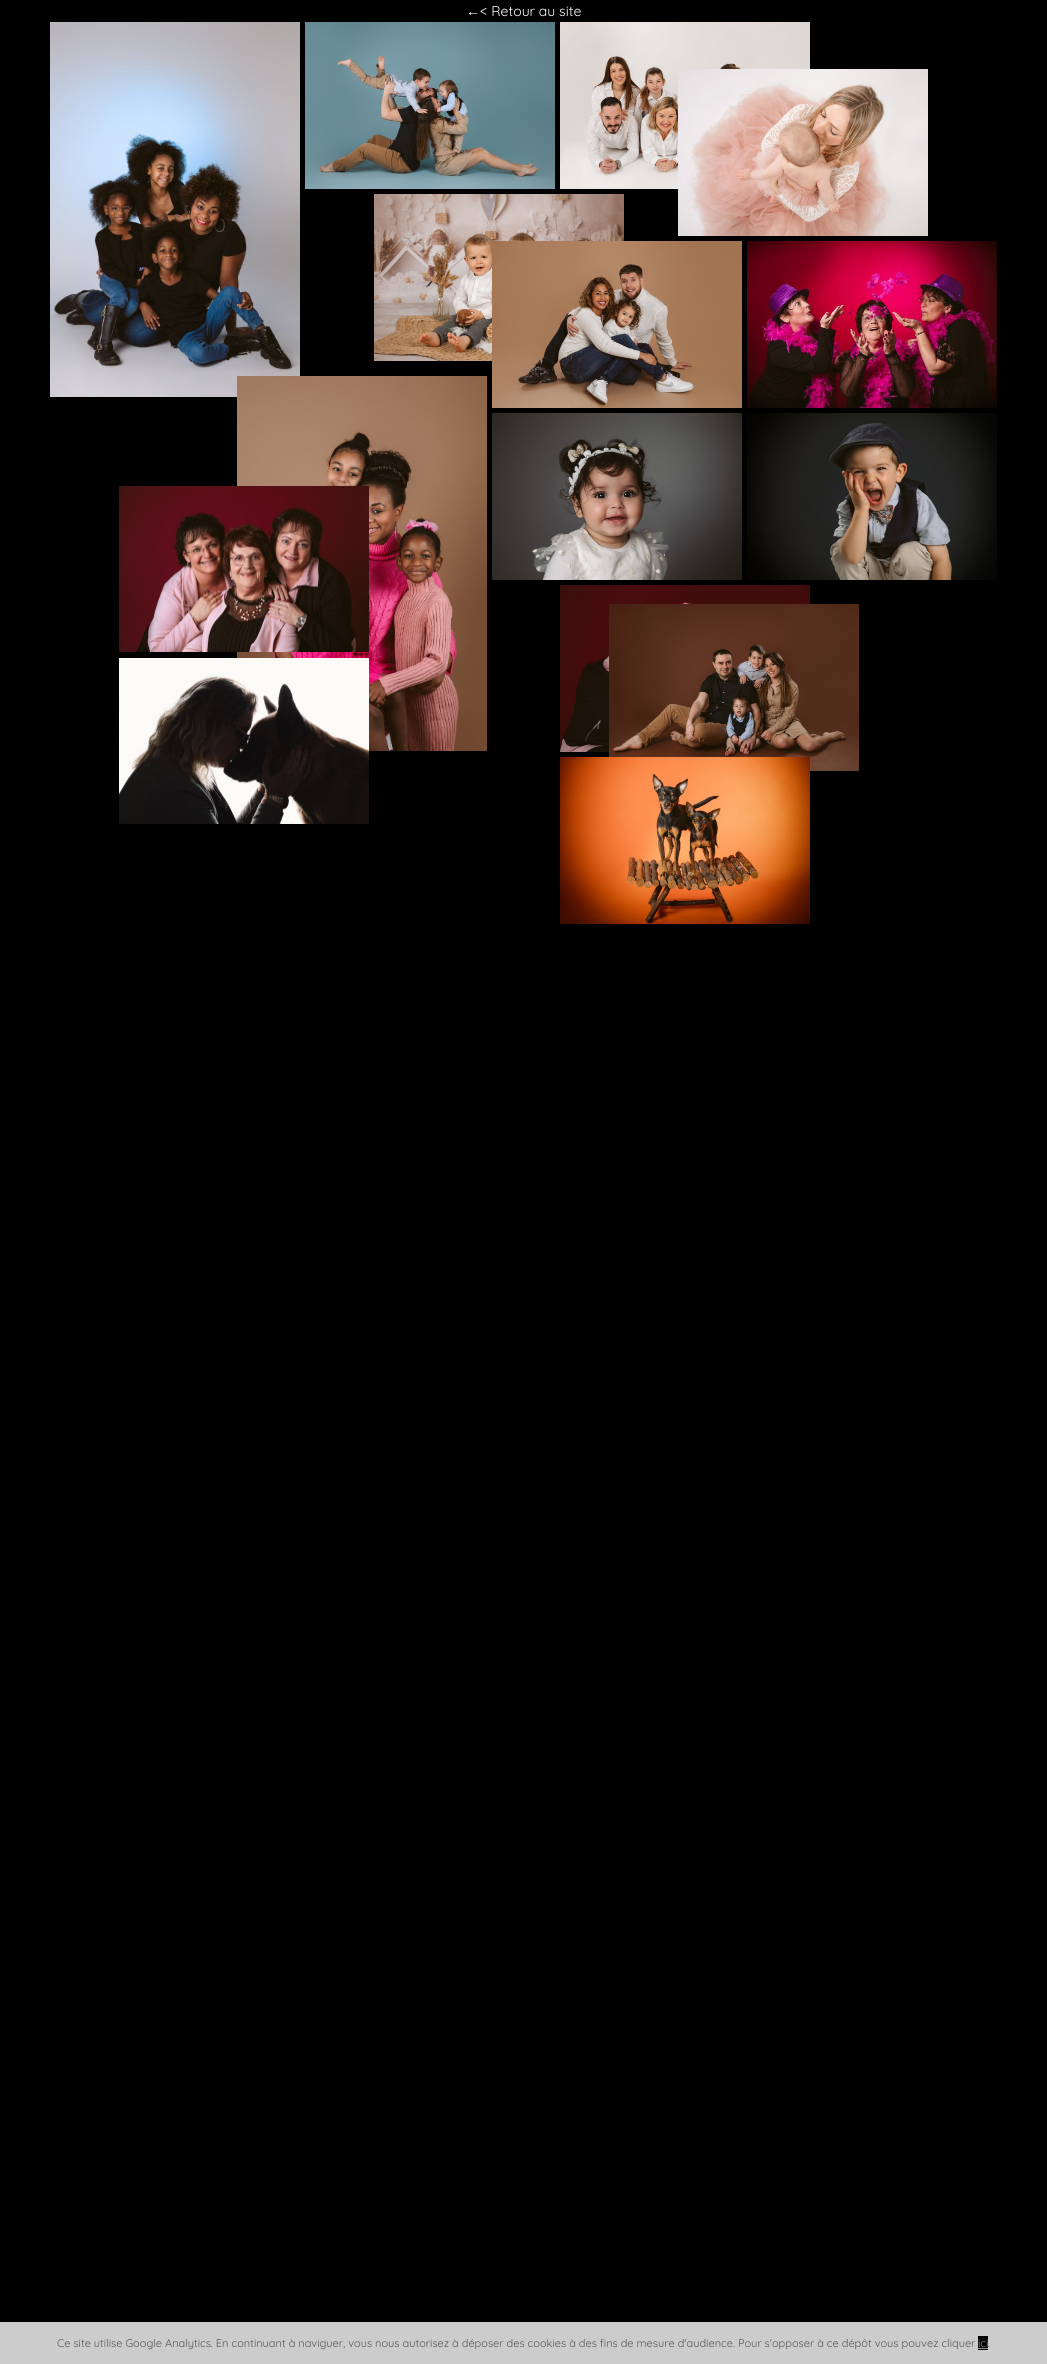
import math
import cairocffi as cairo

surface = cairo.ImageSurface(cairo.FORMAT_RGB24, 1047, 2364)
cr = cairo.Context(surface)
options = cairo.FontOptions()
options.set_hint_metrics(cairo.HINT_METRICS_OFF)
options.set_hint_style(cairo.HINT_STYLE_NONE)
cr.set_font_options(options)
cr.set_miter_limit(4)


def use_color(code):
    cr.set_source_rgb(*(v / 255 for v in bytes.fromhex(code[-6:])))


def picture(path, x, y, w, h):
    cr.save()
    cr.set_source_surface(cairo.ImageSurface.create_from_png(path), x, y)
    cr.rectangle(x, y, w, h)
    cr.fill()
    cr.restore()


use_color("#000000")
cr.paint()
cr.select_font_face("Liberation Serif")
cr.set_font_size(14)
use_color("#ffffff")
cr.move_to(466, 16)
cr.show_text("←")
cr.select_font_face("Quicksand Light")
cr.move_to(480, 16)
cr.show_text("< Retour au site")
picture("img1.png", 50, 22, 250, 375)
picture("img2.png", 305, 22, 250, 167)
picture("img3.png", 560, 22, 250, 167)
picture("img4.png", 678, 69, 250, 167)
picture("img5.png", 374, 194, 250, 167)
picture("img6.png", 492, 241, 250, 167)
picture("img7.png", 747, 241, 250, 167)
picture("img8.png", 237, 376, 250, 375)
picture("img9.png", 492, 413, 250, 167)
picture("img10.png", 747, 413, 250, 167)
picture("img11.png", 119, 486, 250, 166)
picture("img12.png", 560, 585, 250, 167)
picture("img13.png", 119, 658, 250, 166)
picture("img14.png", 609, 604, 250, 167)
picture("img15.png", 560, 757, 250, 167)
use_color("#cccccc")
cr.rectangle(0, 2322, 1047, 42)
cr.fill()
cr.set_font_size(11)
use_color("#555555")
cr.move_to(57, 2347)
cr.show_text("Ce site utilise Google Analytics. En continuant à naviguer, vous nous autorisez à déposer des cookies à des fins de mesure d'audience. Pour s'opposer à ce dépôt vous pouvez cliquer")
use_color("#000000")
cr.rectangle(978, 2336, 10, 14)
cr.fill()
use_color("#999999")
cr.move_to(978, 2347)
cr.show_text("ici")
use_color("#555555")
cr.move_to(988, 2347)
cr.show_text(".")
use_color("#999999")
cr.rectangle(978, 2348, 10, 1)
cr.fill()
surface.write_to_png("result.png")
